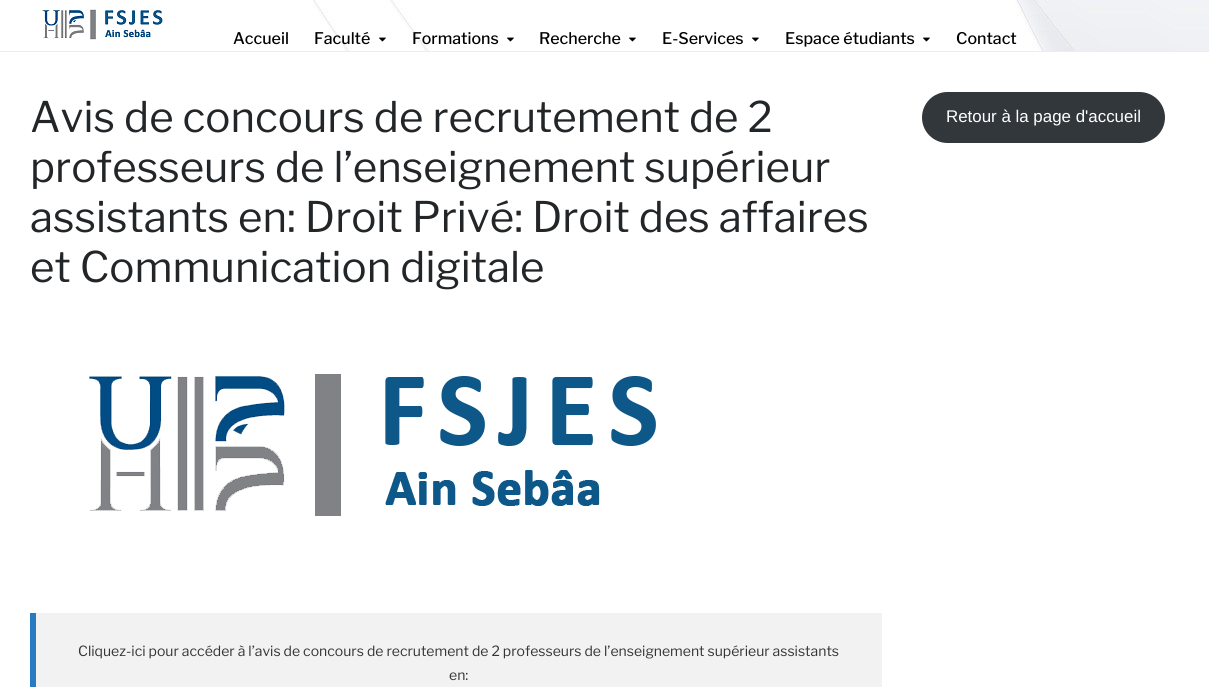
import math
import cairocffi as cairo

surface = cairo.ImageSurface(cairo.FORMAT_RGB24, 1209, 687)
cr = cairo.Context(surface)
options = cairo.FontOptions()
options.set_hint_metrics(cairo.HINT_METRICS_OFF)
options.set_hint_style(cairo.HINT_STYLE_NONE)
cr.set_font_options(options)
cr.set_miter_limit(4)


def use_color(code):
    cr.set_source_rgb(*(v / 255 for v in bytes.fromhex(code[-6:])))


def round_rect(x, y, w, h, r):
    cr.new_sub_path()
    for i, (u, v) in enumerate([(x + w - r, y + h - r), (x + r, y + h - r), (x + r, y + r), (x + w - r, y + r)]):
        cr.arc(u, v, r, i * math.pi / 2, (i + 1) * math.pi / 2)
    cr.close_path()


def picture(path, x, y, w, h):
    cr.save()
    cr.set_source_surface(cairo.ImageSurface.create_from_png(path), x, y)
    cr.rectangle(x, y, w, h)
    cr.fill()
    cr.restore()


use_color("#ffffff")
cr.paint()
picture("img1.png", 313, 0, 896, 51)
use_color("#ededed")
cr.rectangle(0, 51, 1209, 1)
cr.fill()
picture("img2.png", 42, 9, 121, 31)
cr.select_font_face("Libre Franklin Medium")
cr.set_font_size(16)
use_color("#000000")
cr.move_to(233, 44)
cr.show_text("Accueil")
cr.move_to(314, 44)
cr.show_text("Faculté")
picture("img3.png", 379, 37, 7, 5)
cr.move_to(412, 44)
cr.show_text("Formations")
picture("img3.png", 507, 37, 7, 5)
cr.move_to(539, 44)
cr.show_text("Recherche")
picture("img3.png", 629, 37, 7, 5)
cr.move_to(662, 44)
cr.show_text("E-Services")
picture("img3.png", 752, 37, 7, 5)
cr.move_to(785, 44)
cr.show_text("Espace étudiants")
picture("img3.png", 923, 37, 7, 5)
cr.move_to(956, 44)
cr.show_text("Contact")
cr.select_font_face("Libre Franklin")
cr.set_font_size(42)
use_color("#232628")
cr.move_to(30, 132)
cr.show_text("Avis de concours de recrutement de 2")
cr.move_to(30, 182)
cr.show_text("professeurs de l’enseignement supérieur")
cr.move_to(30, 232)
cr.show_text("assistants en: Droit Privé: Droit des affaires")
cr.move_to(30, 282)
cr.show_text("et Communication digitale")
picture("img4.png", 89, 374, 567, 142)
use_color("#f2f2f2")
cr.rectangle(36, 613, 846, 74)
cr.fill()
use_color("#287ac3")
cr.rectangle(30, 613, 6, 74)
cr.fill()
cr.set_font_size(14)
use_color("#353434")
cr.move_to(78, 656)
cr.show_text("Cliquez-ici pour accéder à l’avis de concours de recrutement de 2 professeurs de l’enseignement supérieur assistants")
cr.move_to(449, 680)
cr.show_text("en:")
use_color("#32373c")
round_rect(922, 92, 243, 51, 25.5)
cr.fill()
cr.select_font_face("Liberation Sans")
cr.set_font_size(16.9)
use_color("#ffffff")
cr.move_to(946, 122)
cr.show_text("Retour à la page d'accueil")
surface.write_to_png("result.png")
